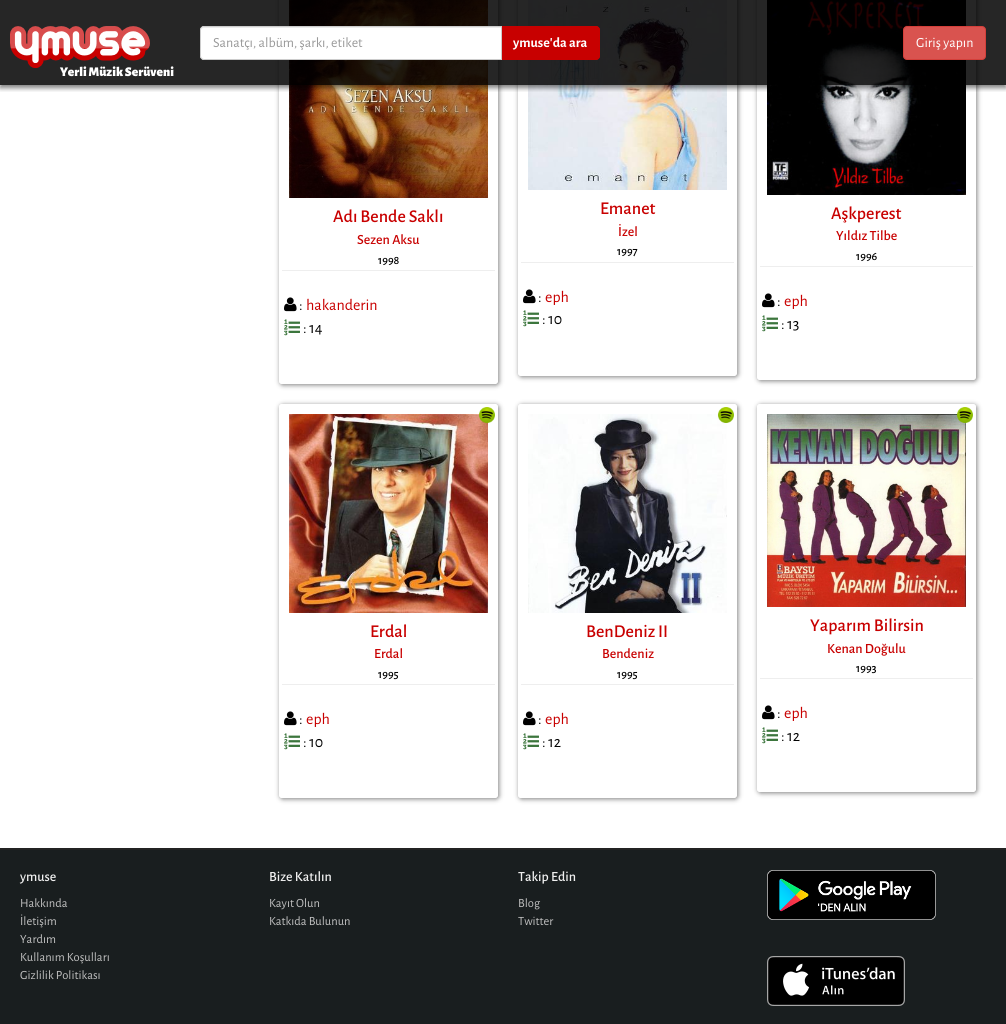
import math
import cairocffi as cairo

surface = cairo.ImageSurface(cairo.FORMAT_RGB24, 1006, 1024)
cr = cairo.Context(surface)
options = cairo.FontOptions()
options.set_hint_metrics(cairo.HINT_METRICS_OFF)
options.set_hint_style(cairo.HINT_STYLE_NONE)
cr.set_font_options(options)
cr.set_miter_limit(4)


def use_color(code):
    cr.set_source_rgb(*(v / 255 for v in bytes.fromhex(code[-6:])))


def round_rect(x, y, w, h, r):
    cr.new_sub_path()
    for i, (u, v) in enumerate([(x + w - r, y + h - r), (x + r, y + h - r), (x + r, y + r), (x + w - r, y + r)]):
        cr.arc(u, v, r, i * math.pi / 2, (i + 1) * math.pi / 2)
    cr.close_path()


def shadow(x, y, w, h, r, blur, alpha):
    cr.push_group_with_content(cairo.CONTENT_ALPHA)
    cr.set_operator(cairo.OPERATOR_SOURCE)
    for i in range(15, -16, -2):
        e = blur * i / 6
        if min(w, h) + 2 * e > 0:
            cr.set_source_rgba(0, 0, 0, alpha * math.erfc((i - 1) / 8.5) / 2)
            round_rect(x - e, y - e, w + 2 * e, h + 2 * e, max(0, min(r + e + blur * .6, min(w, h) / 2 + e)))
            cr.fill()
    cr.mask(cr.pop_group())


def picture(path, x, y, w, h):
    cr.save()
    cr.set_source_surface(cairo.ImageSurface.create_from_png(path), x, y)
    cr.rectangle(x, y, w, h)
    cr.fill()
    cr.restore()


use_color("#ffffff")
cr.paint()
cr.save()
cr.set_fill_rule(cairo.FILL_RULE_EVEN_ODD)
cr.new_path()
cr.move_to(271, 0)
cr.line_to(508, 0)
cr.line_to(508, 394)
cr.line_to(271, 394)
cr.close_path()
cr.move_to(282, -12)
cr.line_to(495, -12)
cr.curve_to(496.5, -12, 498, -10.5, 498, -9)
cr.line_to(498, 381)
cr.curve_to(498, 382.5, 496.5, 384, 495, 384)
cr.line_to(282, 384)
cr.curve_to(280.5, 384, 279, 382.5, 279, 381)
cr.line_to(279, -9)
cr.curve_to(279, -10.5, 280.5, -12, 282, -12)
cr.close_path()
cr.clip()
use_color("#000000")
shadow(280, -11, 219, 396, 3, 2.5, 0.5)
cr.restore()
cr.set_source_rgba(1, 1, 1, 0.7)
round_rect(279, -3, 219, 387, 3)
cr.fill()
picture("img2.png", 289, 0, 199, 198)
cr.save()
cr.set_fill_rule(cairo.FILL_RULE_EVEN_ODD)
cr.new_path()
cr.move_to(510, 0)
cr.line_to(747, 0)
cr.line_to(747, 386)
cr.line_to(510, 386)
cr.close_path()
cr.move_to(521, -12)
cr.line_to(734, -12)
cr.curve_to(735.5, -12, 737, -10.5, 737, -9)
cr.line_to(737, 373)
cr.curve_to(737, 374.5, 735.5, 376, 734, 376)
cr.line_to(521, 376)
cr.curve_to(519.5, 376, 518, 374.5, 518, 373)
cr.line_to(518, -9)
cr.curve_to(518, -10.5, 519.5, -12, 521, -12)
cr.close_path()
cr.clip()
use_color("#000000")
shadow(519, -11, 219, 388, 3, 2.5, 0.5)
cr.restore()
round_rect(518, -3, 219, 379, 3)
cr.fill()
picture("img5.png", 528, 0, 199, 190)
cr.save()
cr.set_fill_rule(cairo.FILL_RULE_EVEN_ODD)
cr.new_path()
cr.move_to(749, 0)
cr.line_to(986, 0)
cr.line_to(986, 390)
cr.line_to(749, 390)
cr.close_path()
cr.move_to(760, -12)
cr.line_to(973, -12)
cr.curve_to(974.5, -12, 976, -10.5, 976, -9)
cr.line_to(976, 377)
cr.curve_to(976, 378.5, 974.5, 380, 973, 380)
cr.line_to(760, 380)
cr.curve_to(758.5, 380, 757, 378.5, 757, 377)
cr.line_to(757, -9)
cr.curve_to(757, -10.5, 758.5, -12, 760, -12)
cr.close_path()
cr.clip()
use_color("#000000")
shadow(758, -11, 219, 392, 3, 2.5, 0.5)
cr.restore()
round_rect(757, -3, 219, 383, 3)
cr.fill()
picture("img6.png", 767, 0, 199, 195)
cr.save()
cr.rectangle(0, 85, 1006, 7)
cr.clip()
use_color("#000000")
shadow(0, 3, 1006, 85, 0, 2.5, 0.5)
cr.restore()
cr.set_source_rgba(0, 0, 0, 0.85)
cr.rectangle(0, 0, 1006, 85)
cr.fill()
use_color("#c80000")
cr.new_path()
cr.move_to(501, 26)
cr.line_to(596, 26)
cr.curve_to(598, 26, 600, 28, 600, 30)
cr.line_to(600, 56)
cr.curve_to(600, 58, 598, 60, 596, 60)
cr.line_to(501, 60)
cr.close_path()
cr.fill()
cr.set_fill_rule(cairo.FILL_RULE_EVEN_ODD)
cr.new_path()
cr.move_to(501, 26)
cr.line_to(596, 26)
cr.curve_to(598, 26, 600, 28, 600, 30)
cr.line_to(600, 56)
cr.curve_to(600, 58, 598, 60, 596, 60)
cr.line_to(501, 60)
cr.close_path()
cr.move_to(501, 27)
cr.line_to(596, 27)
cr.curve_to(598, 27, 599, 28, 599, 30)
cr.line_to(599, 56)
cr.curve_to(599, 58, 598, 59, 596, 59)
cr.line_to(501, 59)
cr.close_path()
cr.fill()
use_color("#ffffff")
cr.new_path()
cr.move_to(204, 26)
cr.line_to(502, 26)
cr.line_to(502, 60)
cr.line_to(204, 60)
cr.curve_to(202, 60, 200, 58, 200, 56)
cr.line_to(200, 30)
cr.curve_to(200, 28, 202, 26, 204, 26)
cr.close_path()
cr.fill()
use_color("#ececec")
cr.set_fill_rule(cairo.FILL_RULE_WINDING)
cr.new_path()
cr.move_to(204, 28)
cr.line_to(501, 28)
cr.line_to(501, 27)
cr.line_to(204, 27)
cr.curve_to(202, 27, 201, 29, 201, 31)
cr.curve_to(201, 29, 202, 28, 204, 28)
cr.close_path()
cr.fill()
cr.new_path()
cr.move_to(204, 26.5)
cr.line_to(501.5, 26.5)
cr.line_to(501.5, 59.5)
cr.line_to(204, 59.5)
cr.curve_to(202, 59.5, 200.5, 58, 200.5, 56)
cr.line_to(200.5, 30)
cr.curve_to(200.5, 28, 202, 26.5, 204, 26.5)
cr.close_path()
use_color("#cccccc")
cr.set_line_width(1)
cr.stroke()
cr.select_font_face("Alegreya Sans")
cr.set_font_size(14)
use_color("#999999")
cr.move_to(213, 47)
cr.show_text("Sanatçı, albüm, şarkı, etiket")
cr.select_font_face("Alegreya Sans", cairo.FONT_SLANT_NORMAL, cairo.FONT_WEIGHT_BOLD)
use_color("#ffffff")
cr.move_to(513, 47)
cr.show_text("ymuse'da ara")
use_color("#d9534f")
round_rect(903.5, 26.5, 82, 33, 3.5)
cr.fill_preserve()
use_color("#d43f3a")
cr.stroke()
cr.select_font_face("Alegreya Sans")
use_color("#ffffff")
cr.move_to(916, 47)
cr.show_text("Giriş yapın")
picture("img1.png", 10, 26, 140, 42)
cr.select_font_face("Alegreya Sans Black")
cr.set_font_size(13.25)
cr.move_to(60, 76)
cr.show_text("Yerli Müzik Serüveni")
cr.select_font_face("Alegreya Sans Medium")
cr.set_font_size(18)
use_color("#c80000")
cr.move_to(333, 222)
cr.show_text("Adı Bende Saklı")
cr.set_font_size(14)
cr.move_to(357, 244)
cr.show_text("Sezen Aksu")
cr.set_font_size(12)
use_color("#000000")
cr.move_to(378, 264)
cr.show_text("1998")
use_color("#eeeeee")
cr.rectangle(282, 270, 213, 1)
cr.fill()
picture("img3.png", 284, 297, 13, 15)
cr.select_font_face("Alegreya Sans")
cr.set_font_size(16)
use_color("#000000")
cr.move_to(299, 310)
cr.show_text(":")
use_color("#c80000")
cr.move_to(306, 310)
cr.show_text("hakanderin")
picture("img4.png", 284, 319, 16, 17)
use_color("#000000")
cr.move_to(303, 333)
cr.show_text(": 14")
cr.select_font_face("Alegreya Sans Medium")
cr.set_font_size(18)
use_color("#c80000")
cr.move_to(600, 214)
cr.show_text("Emanet")
cr.set_font_size(14)
cr.move_to(618, 236)
cr.show_text("İzel")
cr.set_font_size(12)
use_color("#000000")
cr.move_to(617, 255)
cr.show_text("1997")
use_color("#eeeeee")
cr.rectangle(521, 262, 213, 1)
cr.fill()
picture("img3.png", 523, 289, 13, 15)
cr.select_font_face("Alegreya Sans")
cr.set_font_size(16)
use_color("#000000")
cr.move_to(538, 302)
cr.show_text(":")
use_color("#c80000")
cr.move_to(545, 302)
cr.show_text("eph")
picture("img4.png", 523, 310, 16, 17)
use_color("#000000")
cr.move_to(542, 324)
cr.show_text(": 10")
cr.select_font_face("Alegreya Sans Medium")
cr.set_font_size(18)
use_color("#c80000")
cr.move_to(831, 219)
cr.show_text("Aşkperest")
cr.set_font_size(14)
cr.move_to(836, 240)
cr.show_text("Yıldız Tilbe")
cr.set_font_size(12)
use_color("#000000")
cr.move_to(856, 260)
cr.show_text("1996")
use_color("#eeeeee")
cr.rectangle(760, 266, 213, 1)
cr.fill()
picture("img3.png", 762, 293, 13, 15)
cr.select_font_face("Alegreya Sans")
cr.set_font_size(16)
use_color("#000000")
cr.move_to(777, 306)
cr.show_text(":")
use_color("#c80000")
cr.move_to(784, 306)
cr.show_text("eph")
picture("img4.png", 762, 315, 16, 17)
use_color("#000000")
cr.move_to(781, 329)
cr.show_text(": 13")
cr.save()
cr.set_fill_rule(cairo.FILL_RULE_EVEN_ODD)
cr.new_path()
cr.move_to(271, 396)
cr.line_to(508, 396)
cr.line_to(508, 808)
cr.line_to(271, 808)
cr.close_path()
cr.move_to(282, 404)
cr.line_to(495, 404)
cr.curve_to(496.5, 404, 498, 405.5, 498, 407)
cr.line_to(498, 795)
cr.curve_to(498, 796.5, 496.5, 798, 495, 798)
cr.line_to(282, 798)
cr.curve_to(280.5, 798, 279, 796.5, 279, 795)
cr.line_to(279, 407)
cr.curve_to(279, 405.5, 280.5, 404, 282, 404)
cr.close_path()
cr.clip()
use_color("#000000")
shadow(280, 405, 219, 394, 3, 2.5, 0.5)
cr.restore()
cr.set_source_rgba(1, 1, 1, 0.7)
round_rect(279, 404, 219, 394, 3)
cr.fill()
picture("img8.png", 289, 414, 199, 199)
picture("img7.png", 479, 407, 16, 16)
cr.select_font_face("Alegreya Sans Medium")
cr.set_font_size(18)
use_color("#c80000")
cr.move_to(370, 637)
cr.show_text("Erdal")
cr.set_font_size(14)
cr.move_to(374, 658)
cr.show_text("Erdal")
cr.set_font_size(12)
use_color("#000000")
cr.move_to(378, 678)
cr.show_text("1995")
use_color("#eeeeee")
cr.rectangle(282, 684, 213, 1)
cr.fill()
picture("img3.png", 284, 711, 13, 15)
cr.select_font_face("Alegreya Sans")
cr.set_font_size(16)
use_color("#000000")
cr.move_to(299, 724)
cr.show_text(":")
use_color("#c80000")
cr.move_to(306, 724)
cr.show_text("eph")
picture("img4.png", 284, 733, 16, 17)
use_color("#000000")
cr.move_to(303, 747)
cr.show_text(": 10")
cr.save()
cr.set_fill_rule(cairo.FILL_RULE_EVEN_ODD)
cr.new_path()
cr.move_to(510, 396)
cr.line_to(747, 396)
cr.line_to(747, 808)
cr.line_to(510, 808)
cr.close_path()
cr.move_to(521, 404)
cr.line_to(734, 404)
cr.curve_to(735.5, 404, 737, 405.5, 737, 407)
cr.line_to(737, 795)
cr.curve_to(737, 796.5, 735.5, 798, 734, 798)
cr.line_to(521, 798)
cr.curve_to(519.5, 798, 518, 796.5, 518, 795)
cr.line_to(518, 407)
cr.curve_to(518, 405.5, 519.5, 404, 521, 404)
cr.close_path()
cr.clip()
use_color("#000000")
shadow(519, 405, 219, 394, 3, 2.5, 0.5)
cr.restore()
cr.set_source_rgba(1, 1, 1, 0.7)
round_rect(518, 404, 219, 394, 3)
cr.fill()
picture("img10.png", 528, 414, 199, 199)
picture("img9.png", 718, 407, 16, 16)
cr.select_font_face("Alegreya Sans Medium")
cr.set_font_size(18)
use_color("#c80000")
cr.move_to(586, 637)
cr.show_text("BenDeniz II")
cr.set_font_size(14)
cr.move_to(602, 658)
cr.show_text("Bendeniz")
cr.set_font_size(12)
use_color("#000000")
cr.move_to(617, 678)
cr.show_text("1995")
use_color("#eeeeee")
cr.rectangle(521, 684, 213, 1)
cr.fill()
picture("img3.png", 523, 711, 13, 15)
cr.select_font_face("Alegreya Sans")
cr.set_font_size(16)
use_color("#000000")
cr.move_to(538, 724)
cr.show_text(":")
use_color("#c80000")
cr.move_to(545, 724)
cr.show_text("eph")
picture("img4.png", 523, 733, 16, 17)
use_color("#000000")
cr.move_to(542, 747)
cr.show_text(": 12")
cr.save()
cr.set_fill_rule(cairo.FILL_RULE_EVEN_ODD)
cr.new_path()
cr.move_to(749, 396)
cr.line_to(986, 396)
cr.line_to(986, 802)
cr.line_to(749, 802)
cr.close_path()
cr.move_to(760, 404)
cr.line_to(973, 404)
cr.curve_to(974.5, 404, 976, 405.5, 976, 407)
cr.line_to(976, 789)
cr.curve_to(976, 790.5, 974.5, 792, 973, 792)
cr.line_to(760, 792)
cr.curve_to(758.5, 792, 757, 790.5, 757, 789)
cr.line_to(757, 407)
cr.curve_to(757, 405.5, 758.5, 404, 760, 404)
cr.close_path()
cr.clip()
use_color("#000000")
shadow(758, 405, 219, 388, 3, 2.5, 0.5)
cr.restore()
cr.set_source_rgba(1, 1, 1, 0.7)
round_rect(757, 404, 219, 388, 3)
cr.fill()
picture("img12.png", 767, 414, 199, 193)
picture("img11.png", 957, 407, 16, 16)
cr.select_font_face("Alegreya Sans Medium")
cr.set_font_size(18)
use_color("#c80000")
cr.move_to(810, 631)
cr.show_text("Yaparım Bilirsin")
cr.set_font_size(14)
cr.move_to(827, 653)
cr.show_text("Kenan Doğulu")
cr.set_font_size(12)
use_color("#000000")
cr.move_to(856, 672)
cr.show_text("1993")
use_color("#eeeeee")
cr.rectangle(760, 678, 213, 1)
cr.fill()
picture("img3.png", 762, 705, 13, 15)
cr.select_font_face("Alegreya Sans")
cr.set_font_size(16)
use_color("#000000")
cr.move_to(777, 718)
cr.show_text(":")
use_color("#c80000")
cr.move_to(784, 718)
cr.show_text("eph")
picture("img4.png", 762, 727, 16, 17)
use_color("#000000")
cr.move_to(781, 741)
cr.show_text(": 12")
use_color("#191e1f")
cr.rectangle(0, 850, 1006, 174)
cr.fill()
use_color("#232323")
cr.rectangle(0, 848, 1006, 2)
cr.fill()
cr.select_font_face("Alegreya Sans Medium")
cr.set_font_size(14)
use_color("#f0f0f0")
cr.move_to(20, 881)
cr.show_text("ymuse")
cr.select_font_face("Alegreya Sans")
cr.set_font_size(12.5)
use_color("#c1c1c1")
cr.move_to(20, 907)
cr.show_text("Hakkında")
cr.move_to(20, 925)
cr.show_text("İletişim")
cr.move_to(20, 943)
cr.show_text("Yardım")
cr.move_to(20, 961)
cr.show_text("Kullanım Koşulları")
cr.move_to(20, 979)
cr.show_text("Gizlilik Politikası")
cr.select_font_face("Alegreya Sans Medium")
cr.set_font_size(14)
use_color("#f0f0f0")
cr.move_to(269, 881)
cr.show_text("Bize Katılın")
cr.select_font_face("Alegreya Sans")
cr.set_font_size(12.5)
use_color("#c1c1c1")
cr.move_to(269, 907)
cr.show_text("Kayıt Olun")
cr.move_to(269, 925)
cr.show_text("Katkıda Bulunun")
cr.select_font_face("Alegreya Sans Medium")
cr.set_font_size(14)
use_color("#f0f0f0")
cr.move_to(518, 881)
cr.show_text("Takip Edin")
cr.select_font_face("Alegreya Sans")
cr.set_font_size(12.5)
use_color("#c1c1c1")
cr.move_to(518, 907)
cr.show_text("Blog")
cr.move_to(518, 925)
cr.show_text("Twitter")
picture("img13.png", 767, 870, 169, 50)
picture("img14.png", 767, 956, 138, 50)
surface.write_to_png("result.png")
